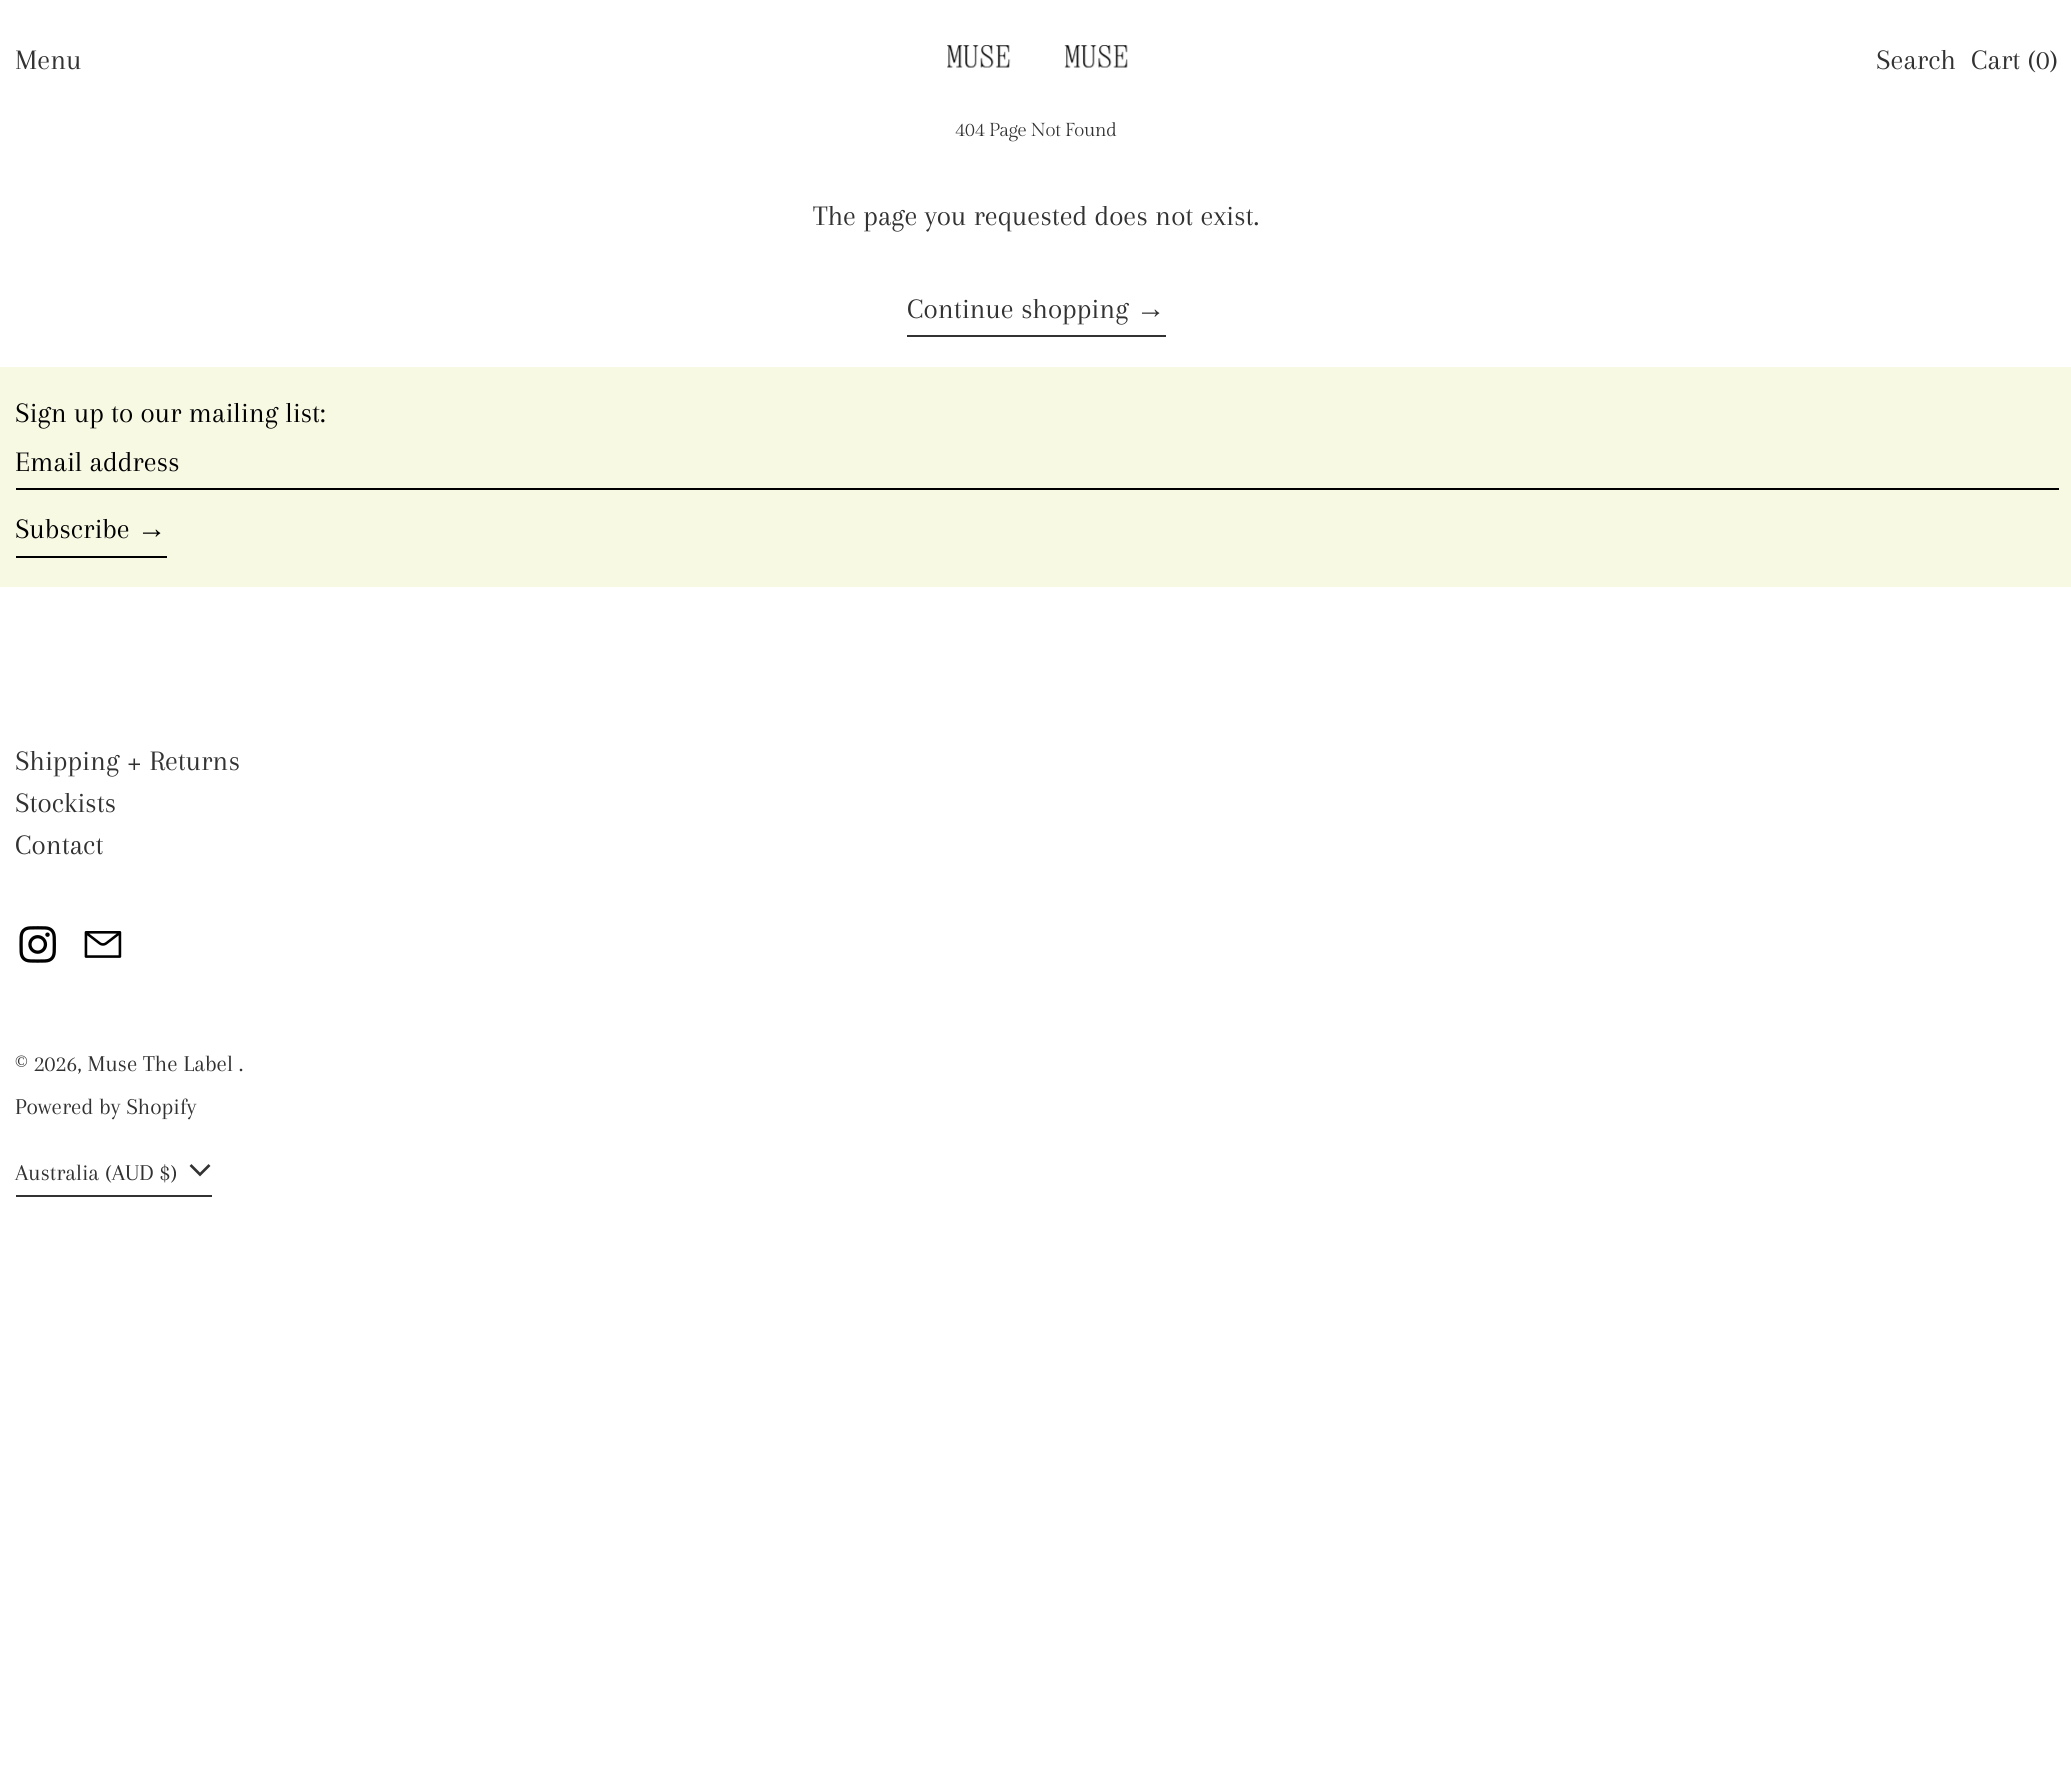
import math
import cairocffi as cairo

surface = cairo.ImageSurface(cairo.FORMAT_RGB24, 2071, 1772)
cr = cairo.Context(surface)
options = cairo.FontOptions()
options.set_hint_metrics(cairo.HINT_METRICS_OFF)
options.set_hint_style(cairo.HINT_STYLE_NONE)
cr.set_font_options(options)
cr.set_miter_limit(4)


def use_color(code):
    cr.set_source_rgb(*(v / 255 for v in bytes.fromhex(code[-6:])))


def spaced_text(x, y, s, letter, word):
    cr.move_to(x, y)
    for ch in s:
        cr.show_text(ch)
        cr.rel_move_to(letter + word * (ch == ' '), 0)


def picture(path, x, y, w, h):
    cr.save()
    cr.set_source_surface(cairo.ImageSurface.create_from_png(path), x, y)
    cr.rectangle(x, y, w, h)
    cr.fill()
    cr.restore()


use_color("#ffffff")
cr.paint()
cr.select_font_face("Arapey")
cr.set_font_size(29.25)
use_color("#333232")
cr.move_to(15, 69)
cr.show_text("Menu")
picture("img1.png", 947, 45, 181, 23)
cr.move_to(1876, 69)
cr.show_text("Search")
cr.move_to(1971, 69)
cr.show_text("Cart (0)")
cr.select_font_face("Gilda Display")
cr.set_font_size(18.75)
spaced_text(955, 136, "404 Page Not Found", -0.5, 0)
cr.select_font_face("Arapey")
cr.set_font_size(29.25)
cr.move_to(813, 225)
cr.show_text("The page you requested does not exist.")
cr.rectangle(907, 335, 259, 2)
cr.fill()
cr.move_to(907, 318)
cr.show_text("Continue shopping")
cr.select_font_face("Liberation Serif")
cr.move_to(1136, 318)
cr.show_text("→")
use_color("#f7f9e3")
cr.rectangle(0, 367, 2071, 220)
cr.fill()
cr.select_font_face("Arapey")
use_color("#000000")
cr.move_to(15, 422)
cr.show_text("Sign up to our mailing list:")
cr.rectangle(16, 488, 2043, 2)
cr.fill()
cr.move_to(15, 471)
cr.show_text("Email address")
cr.rectangle(16, 556, 151, 2)
cr.fill()
cr.move_to(15, 538)
cr.show_text("Subscribe")
cr.select_font_face("Liberation Serif")
cr.move_to(137, 538)
cr.show_text("→")
cr.select_font_face("Arapey")
use_color("#333232")
cr.move_to(15, 770)
cr.show_text("Shipping + Returns")
cr.move_to(15, 812)
cr.show_text("Stockists")
cr.move_to(15, 854)
cr.show_text("Contact")
picture("img2.png", 19, 926, 37, 37)
picture("img3.png", 84, 931, 38, 27)
cr.set_font_size(23.5)
cr.move_to(15, 1071)
cr.show_text("© 2026, Muse The Label .")
cr.move_to(15, 1114)
cr.show_text("Powered by Shopify")
cr.rectangle(16, 1195, 196, 2)
cr.fill()
cr.move_to(15, 1180)
cr.show_text("Australia (AUD $)")
cr.new_path()
cr.move_to(190.5, 1165)
cr.line_to(200, 1174.5)
cr.line_to(209.5, 1165)
cr.set_line_width(2.7)
cr.stroke()
surface.write_to_png("result.png")
